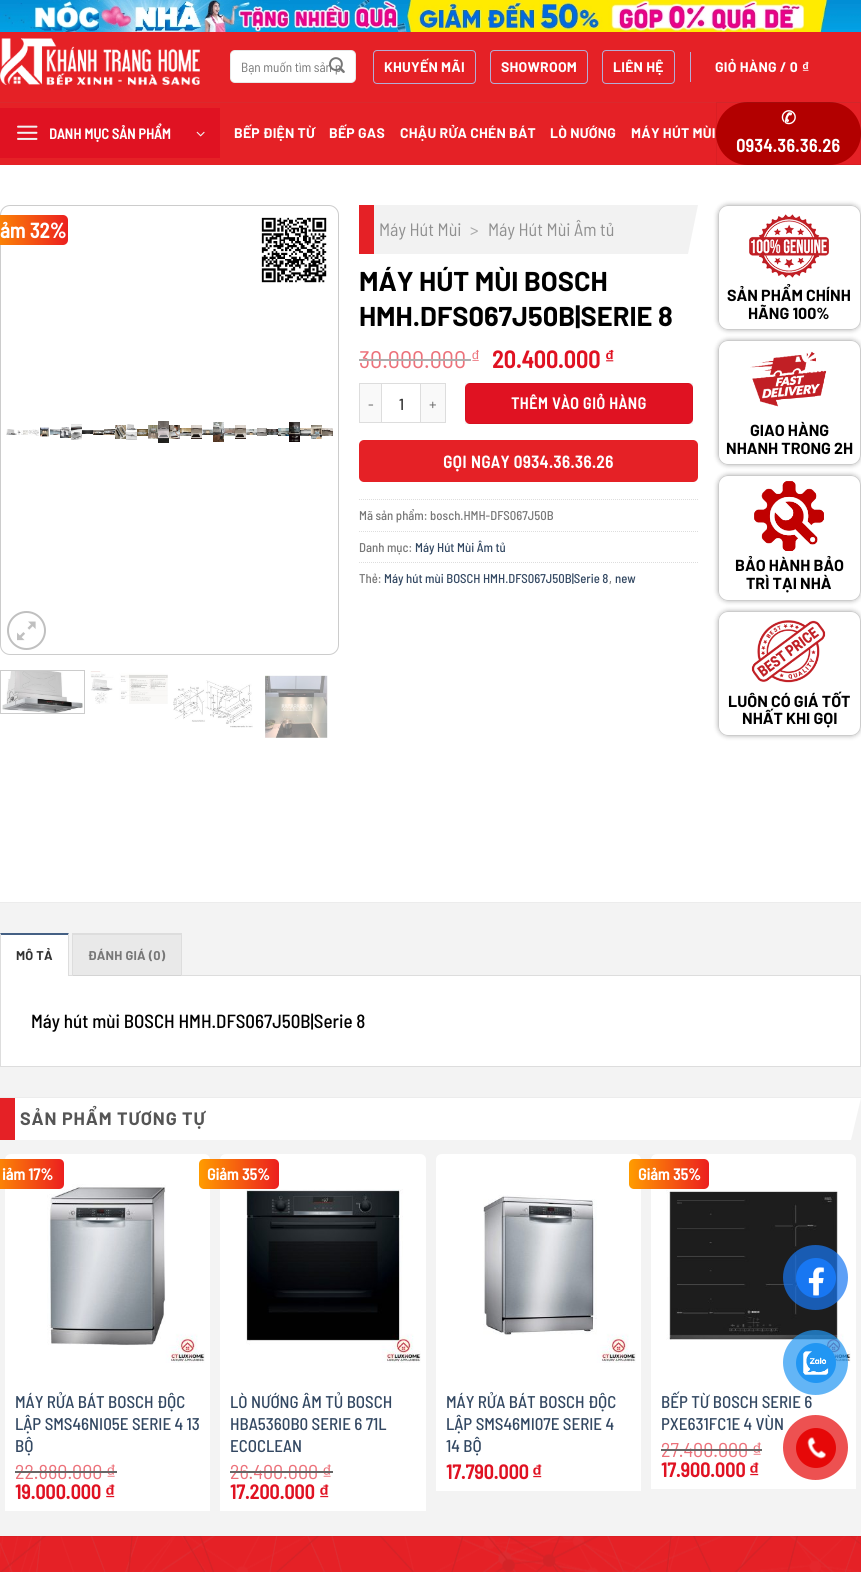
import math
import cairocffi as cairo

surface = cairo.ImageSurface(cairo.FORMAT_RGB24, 861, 1572)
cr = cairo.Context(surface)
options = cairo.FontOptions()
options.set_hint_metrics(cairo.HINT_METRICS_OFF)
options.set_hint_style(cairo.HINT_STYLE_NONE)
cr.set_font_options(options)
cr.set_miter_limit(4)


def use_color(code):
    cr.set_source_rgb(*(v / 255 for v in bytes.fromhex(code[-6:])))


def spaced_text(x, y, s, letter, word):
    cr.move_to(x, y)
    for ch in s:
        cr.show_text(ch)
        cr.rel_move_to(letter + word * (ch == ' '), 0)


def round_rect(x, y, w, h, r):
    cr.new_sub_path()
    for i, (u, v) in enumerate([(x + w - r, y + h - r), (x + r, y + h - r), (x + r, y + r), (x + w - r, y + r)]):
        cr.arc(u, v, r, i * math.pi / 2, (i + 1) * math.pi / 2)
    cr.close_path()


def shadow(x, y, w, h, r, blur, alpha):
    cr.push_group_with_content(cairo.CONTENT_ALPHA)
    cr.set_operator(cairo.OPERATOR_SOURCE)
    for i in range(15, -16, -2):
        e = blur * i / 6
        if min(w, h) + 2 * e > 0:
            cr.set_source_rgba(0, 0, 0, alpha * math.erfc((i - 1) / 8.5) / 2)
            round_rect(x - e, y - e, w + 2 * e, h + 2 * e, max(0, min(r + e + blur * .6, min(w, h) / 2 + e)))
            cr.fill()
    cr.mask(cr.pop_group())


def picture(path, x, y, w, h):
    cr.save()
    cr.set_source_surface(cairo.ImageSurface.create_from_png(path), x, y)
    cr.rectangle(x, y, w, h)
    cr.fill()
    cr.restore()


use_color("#ffffff")
cr.paint()
picture("img1.png", 0, 0, 861, 32)
use_color("#e52126")
cr.rectangle(0, 32, 861, 133)
cr.fill()
picture("img2.png", 0, 38, 200, 47)
use_color("#ffffff")
round_rect(230, 50, 126, 33, 5)
cr.fill()
round_rect(230.5, 50.5, 125, 32, 4.5)
cr.set_source_rgba(0, 0, 0, 0.09)
cr.set_line_width(1)
cr.stroke()
cr.select_font_face("Barlow Semi Condensed")
cr.set_font_size(13.25)
use_color("#777777")
cr.move_to(241, 72)
cr.show_text("Bạn muốn tìm sản p")
picture("img3.png", 329, 57, 16, 16)
round_rect(373.5, 50.5, 102, 33, 3.5)
use_color("#b4add4")
cr.stroke()
cr.select_font_face("Barlow", cairo.FONT_SLANT_NORMAL, cairo.FONT_WEIGHT_BOLD)
cr.set_font_size(14)
use_color("#ffffff")
spaced_text(384, 72, "KHUYẾN MÃI", 0.25, 0)
round_rect(490.5, 50.5, 97, 33, 3.5)
use_color("#b4add4")
cr.stroke()
use_color("#ffffff")
spaced_text(501, 72, "SHOWROOM", 0.25, 0)
round_rect(602.5, 50.5, 72, 33, 3.5)
use_color("#b4add4")
cr.stroke()
use_color("#ffffff")
spaced_text(613, 72, "LIÊN HỆ", 0.25, 0)
use_color("#b4add4")
cr.rectangle(690, 52, 1, 30)
cr.fill()
use_color("#ffffff")
spaced_text(715, 72, "GIỎ HÀNG / 0", 0.25, 0)
cr.select_font_face("Liberation Sans", cairo.FONT_SLANT_NORMAL, cairo.FONT_WEIGHT_BOLD)
spaced_text(802, 72, "₫", 0.25, 0)
use_color("#b20000")
round_rect(716, 102, 145, 63, 31.5)
cr.fill()
cr.rectangle(716.5, 102.5, 144, 62)
cr.set_source_rgba(0, 0, 0, 0.05)
cr.stroke()
cr.set_source_rgba(0.467, 0.467, 0.467, 0.1)
cr.rectangle(0, 102, 861, 1)
cr.fill()
use_color("#e01222")
cr.rectangle(0, 108, 220, 50)
cr.fill()
picture("img4.png", 17, 125, 21, 15)
cr.select_font_face("Barlow Semi Condensed", cairo.FONT_SLANT_NORMAL, cairo.FONT_WEIGHT_BOLD)
cr.set_font_size(14.5)
use_color("#ffffff")
cr.move_to(49, 139)
cr.show_text("DANH MỤC SẢN PHẨM")
picture("img5.png", 196, 131, 9, 6)
cr.select_font_face("Barlow", cairo.FONT_SLANT_NORMAL, cairo.FONT_WEIGHT_BOLD)
cr.set_font_size(14)
spaced_text(234, 138, "BẾP ĐIỆN TỪ", 0.25, 0)
spaced_text(329, 138, "BẾP GAS", 0.25, 0)
spaced_text(400, 138, "CHẬU RỬA CHÉN BÁT", 0.25, 0)
spaced_text(550, 138, "LÒ NƯỚNG", 0.25, 0)
spaced_text(631, 138, "MÁY HÚT MÙI", 0.25, 0)
cr.select_font_face("DejaVu Sans", cairo.FONT_SLANT_NORMAL, cairo.FONT_WEIGHT_BOLD)
cr.set_font_size(18)
spaced_text(781, 124, "✆", 0.4, 0)
cr.select_font_face("Barlow Semi Condensed", cairo.FONT_SLANT_NORMAL, cairo.FONT_WEIGHT_BOLD)
spaced_text(736, 152, "0934.36.36.26", 0.4, 0)
round_rect(0.5, 205.5, 338, 449, 9.5)
use_color("#cccccc")
cr.stroke()
picture("img6.png", 6, 429, 11, 6)
picture("img7.png", 17, 430, 11, 5)
picture("img8.png", 28, 429, 11, 7)
picture("img9.png", 40, 427, 9, 10)
picture("img10.png", 50, 429, 10, 6)
picture("img11.png", 60, 427, 11, 11)
picture("img12.png", 71, 424, 11, 16)
picture("img13.png", 82, 430, 11, 4)
picture("img14.png", 93, 430, 11, 5)
picture("img15.png", 104, 429, 11, 6)
picture("img16.png", 115, 425, 11, 14)
picture("img17.png", 126, 424, 11, 16)
picture("img18.png", 137, 429, 11, 7)
picture("img19.png", 148, 425, 10, 14)
picture("img20.png", 158, 421, 11, 22)
picture("img21.png", 169, 425, 11, 14)
picture("img22.png", 180, 428, 11, 8)
picture("img23.png", 191, 425, 11, 14)
picture("img24.png", 202, 429, 11, 6)
picture("img25.png", 213, 422, 11, 20)
picture("img26.png", 224, 428, 11, 8)
picture("img27.png", 235, 425, 11, 14)
picture("img28.png", 246, 429, 11, 6)
picture("img29.png", 257, 428, 10, 8)
picture("img30.png", 267, 429, 11, 6)
picture("img31.png", 278, 428, 11, 8)
picture("img32.png", 289, 422, 11, 20)
picture("img33.png", 300, 428, 11, 8)
picture("img34.png", 311, 425, 11, 14)
picture("img35.png", 322, 428, 11, 8)
gradient = cairo.LinearGradient(68, 230, -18, 230)
gradient.add_color_stop_rgba(0, 0.925, 0.122, 0.122, 1)
gradient.add_color_stop_rgba(1, 1, 0.612, 0, 1)
cr.set_source(gradient)
round_rect(-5, 215, 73, 30, 5)
cr.fill()
cr.set_font_size(21)
use_color("#ffffff")
cr.move_to(0, 238)
cr.show_text("ảm 32%")
picture("img36.png", 261, 217, 66, 66)
cr.arc(26.5, 630.5, 18.5, 0, 2 * math.pi)
use_color("#c0c0c0")
cr.set_line_width(2)
cr.stroke()
picture("img37.png", 17, 621, 19, 20)
cr.rectangle(0.5, 670.5, 84, 43)
use_color("#cccccc")
cr.set_line_width(1)
cr.stroke()
picture("img38.png", 2, 671, 81, 42)
picture("img39.png", 90, 671, 78, 33)
picture("img40.png", 173, 680, 80, 48)
picture("img41.png", 265, 675, 63, 63)
use_color("#e52126")
cr.rectangle(359, 205, 15, 49)
cr.fill()
use_color("#f2f2f2")
cr.new_path()
cr.move_to(374, 254)
cr.line_to(374, 205)
cr.line_to(698, 205)
cr.line_to(688, 254)
cr.close_path()
cr.fill()
cr.select_font_face("Barlow Semi Condensed")
cr.set_font_size(18)
use_color("#909090")
cr.move_to(379, 236)
cr.show_text("Máy Hút Mùi")
use_color("#a9a9a9")
cr.move_to(470, 236)
cr.show_text(">")
use_color("#909090")
cr.move_to(488, 236)
cr.show_text("Máy Hút Mùi Âm tủ")
cr.select_font_face("Barlow", cairo.FONT_SLANT_NORMAL, cairo.FONT_WEIGHT_BOLD)
cr.set_font_size(27.25)
use_color("#000000")
cr.move_to(359, 291)
cr.show_text("MÁY HÚT MÙI BOSCH")
cr.move_to(359, 326)
cr.show_text("HMH.DFS067J50B|SERIE 8")
cr.select_font_face("Barlow Semi Condensed")
cr.set_font_size(24)
use_color("#ec717a")
cr.move_to(359, 368)
cr.show_text("30.000.000")
use_color("#adadad")
cr.rectangle(359, 359, 112, 2)
cr.fill()
cr.select_font_face("Liberation Sans")
cr.set_font_size(18)
use_color("#ec717a")
cr.move_to(471, 363)
cr.show_text("₫")
cr.select_font_face("Barlow Semi Condensed", cairo.FONT_SLANT_NORMAL, cairo.FONT_WEIGHT_BOLD)
cr.set_font_size(24)
use_color("#e01222")
cr.move_to(492, 368)
cr.show_text("20.400.000")
cr.select_font_face("Liberation Sans", cairo.FONT_SLANT_NORMAL, cairo.FONT_WEIGHT_BOLD)
cr.set_font_size(18)
cr.move_to(605, 363)
cr.show_text("₫")
use_color("#f9f9f9")
cr.rectangle(360, 384, 21, 38)
cr.fill()
use_color("#dddddd")
cr.rectangle(359, 383, 22, 1)
cr.fill()
cr.rectangle(359, 422, 22, 1)
cr.fill()
cr.rectangle(359, 383, 1, 40)
cr.fill()
cr.select_font_face("Barlow Semi Condensed")
cr.set_font_size(16)
use_color("#666666")
cr.move_to(368, 410)
cr.show_text("-")
cr.rectangle(381.5, 383.5, 39, 39)
use_color("#dddddd")
cr.stroke()
cr.select_font_face("Barlow Semi Condensed Medium")
use_color("#333333")
cr.move_to(399, 410)
cr.show_text("1")
use_color("#f9f9f9")
cr.rectangle(421, 384, 24, 38)
cr.fill()
use_color("#dddddd")
cr.rectangle(421, 383, 25, 1)
cr.fill()
cr.rectangle(445, 383, 1, 40)
cr.fill()
cr.rectangle(421, 422, 25, 1)
cr.fill()
cr.select_font_face("Barlow Semi Condensed")
use_color("#666666")
cr.move_to(429, 410)
cr.show_text("+")
use_color("#e01222")
round_rect(465, 383, 228, 41, 5)
cr.fill()
cr.rectangle(465.5, 383.5, 227, 40)
cr.set_source_rgba(0, 0, 0, 0.05)
cr.stroke()
cr.select_font_face("Barlow Semi Condensed", cairo.FONT_SLANT_NORMAL, cairo.FONT_WEIGHT_BOLD)
use_color("#ffffff")
spaced_text(511, 409, "THÊM VÀO GIỎ HÀNG", 0.5, 0)
use_color("#e52126")
round_rect(359, 440, 339, 42, 5)
cr.fill()
cr.set_font_size(17)
use_color("#ffffff")
spaced_text(443, 468, "GỌI NGAY 0934.36.36.26", 0.5, 0)
cr.new_path()
cr.move_to(359, 499.5)
cr.line_to(698, 499.5)
use_color("#dddddd")
cr.set_dash([1, 1])
cr.stroke()
cr.select_font_face("Barlow Semi Condensed Medium")
cr.set_font_size(12.75)
use_color("#777777")
cr.move_to(359, 520)
cr.show_text("Mã sản phẩm: bosch.HMH-DFS067J50B")
cr.new_path()
cr.move_to(359, 531.5)
cr.line_to(698, 531.5)
use_color("#dddddd")
cr.stroke()
use_color("#777777")
cr.move_to(359, 552)
cr.show_text("Danh mục:")
use_color("#334862")
cr.move_to(415, 552)
cr.show_text("Máy Hút Mùi Âm tủ")
cr.new_path()
cr.move_to(359, 562.5)
cr.line_to(698, 562.5)
use_color("#dddddd")
cr.stroke()
use_color("#777777")
cr.move_to(359, 583)
cr.show_text("Thẻ:")
use_color("#334862")
cr.move_to(384, 583)
cr.show_text("Máy hút mùi BOSCH HMH.DFS067J50B|Serie 8")
use_color("#777777")
cr.move_to(609, 583)
cr.show_text(",")
use_color("#334862")
cr.move_to(615, 583)
cr.show_text("new")
cr.save()
cr.set_fill_rule(cairo.FILL_RULE_EVEN_ODD)
cr.new_path()
cr.move_to(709, 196)
cr.line_to(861, 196)
cr.line_to(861, 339)
cr.line_to(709, 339)
cr.close_path()
cr.move_to(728, 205)
cr.line_to(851, 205)
cr.curve_to(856.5, 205, 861, 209.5, 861, 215)
cr.line_to(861, 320)
cr.curve_to(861, 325.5, 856.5, 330, 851, 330)
cr.line_to(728, 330)
cr.curve_to(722.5, 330, 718, 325.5, 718, 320)
cr.line_to(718, 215)
cr.curve_to(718, 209.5, 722.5, 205, 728, 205)
cr.close_path()
cr.clip()
use_color("#000000")
shadow(718, 205, 143, 125, 10, 2.5, 0.3)
cr.restore()
round_rect(718.5, 205.5, 142, 124, 9.5)
use_color("#cccccc")
cr.set_dash([])
cr.stroke()
picture("img42.png", 749, 214, 80, 64)
cr.select_font_face("Barlow", cairo.FONT_SLANT_NORMAL, cairo.FONT_WEIGHT_BOLD)
cr.set_font_size(16)
use_color("#000000")
cr.move_to(727, 301)
cr.show_text("SẢN PHẨM CHÍNH")
cr.move_to(748, 319)
cr.show_text("HÃNG 100%")
cr.save()
cr.set_fill_rule(cairo.FILL_RULE_EVEN_ODD)
cr.new_path()
cr.move_to(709, 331)
cr.line_to(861, 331)
cr.line_to(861, 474)
cr.line_to(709, 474)
cr.close_path()
cr.move_to(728, 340)
cr.line_to(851, 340)
cr.curve_to(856.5, 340, 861, 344.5, 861, 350)
cr.line_to(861, 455)
cr.curve_to(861, 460.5, 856.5, 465, 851, 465)
cr.line_to(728, 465)
cr.curve_to(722.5, 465, 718, 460.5, 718, 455)
cr.line_to(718, 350)
cr.curve_to(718, 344.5, 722.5, 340, 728, 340)
cr.close_path()
cr.clip()
use_color("#000000")
shadow(718, 340, 143, 125, 10, 2.5, 0.3)
cr.restore()
round_rect(718.5, 340.5, 142, 124, 9.5)
use_color("#cccccc")
cr.stroke()
picture("img43.png", 750, 351, 77, 56)
use_color("#000000")
cr.move_to(750, 436)
cr.show_text("GIAO HÀNG")
cr.move_to(726, 454)
cr.show_text("NHANH TRONG 2H")
cr.save()
cr.set_fill_rule(cairo.FILL_RULE_EVEN_ODD)
cr.new_path()
cr.move_to(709, 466)
cr.line_to(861, 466)
cr.line_to(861, 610)
cr.line_to(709, 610)
cr.close_path()
cr.move_to(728, 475)
cr.line_to(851, 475)
cr.curve_to(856.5, 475, 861, 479.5, 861, 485)
cr.line_to(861, 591)
cr.curve_to(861, 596.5, 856.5, 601, 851, 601)
cr.line_to(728, 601)
cr.curve_to(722.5, 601, 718, 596.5, 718, 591)
cr.line_to(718, 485)
cr.curve_to(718, 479.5, 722.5, 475, 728, 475)
cr.close_path()
cr.clip()
use_color("#000000")
shadow(718, 475, 143, 126, 10, 2.5, 0.3)
cr.restore()
round_rect(718.5, 475.5, 142, 125, 9.5)
use_color("#cccccc")
cr.stroke()
picture("img44.png", 754, 481, 70, 70)
use_color("#000000")
cr.move_to(735, 571)
cr.show_text("BẢO HÀNH BẢO")
cr.move_to(746, 589)
cr.show_text("TRÌ TẠI NHÀ")
cr.save()
cr.set_fill_rule(cairo.FILL_RULE_EVEN_ODD)
cr.new_path()
cr.move_to(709, 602)
cr.line_to(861, 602)
cr.line_to(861, 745)
cr.line_to(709, 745)
cr.close_path()
cr.move_to(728, 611)
cr.line_to(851, 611)
cr.curve_to(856.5, 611, 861, 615.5, 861, 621)
cr.line_to(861, 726)
cr.curve_to(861, 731.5, 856.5, 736, 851, 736)
cr.line_to(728, 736)
cr.curve_to(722.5, 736, 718, 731.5, 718, 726)
cr.line_to(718, 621)
cr.curve_to(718, 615.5, 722.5, 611, 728, 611)
cr.close_path()
cr.clip()
use_color("#000000")
shadow(718, 611, 143, 125, 10, 2.5, 0.3)
cr.restore()
round_rect(718.5, 611.5, 142, 124, 9.5)
use_color("#cccccc")
cr.stroke()
picture("img45.png", 751, 620, 75, 63)
use_color("#000000")
cr.move_to(728, 707)
cr.show_text("LUÔN CÓ GIÁ TỐT")
cr.move_to(742, 724)
cr.show_text("NHẤT KHI GỌI")
use_color("#f3f3f3")
cr.rectangle(0, 903, 861, 633)
cr.fill()
use_color("#ececec")
cr.rectangle(0, 902, 861, 1)
cr.fill()
use_color("#ffffff")
cr.rectangle(0.5, 975.5, 860, 91)
cr.fill_preserve()
use_color("#dddddd")
cr.stroke()
use_color("#ffffff")
cr.rectangle(0, 933, 69, 43)
cr.fill()
use_color("#446084")
cr.new_path()
cr.move_to(0, 933)
cr.line_to(69, 933)
cr.line_to(68, 935)
cr.line_to(1, 935)
cr.close_path()
cr.fill()
use_color("#dddddd")
cr.new_path()
cr.move_to(69, 933)
cr.line_to(69, 976)
cr.line_to(68, 976)
cr.line_to(68, 935)
cr.close_path()
cr.fill()
cr.new_path()
cr.move_to(0, 976)
cr.line_to(0, 933)
cr.line_to(1, 935)
cr.line_to(1, 976)
cr.close_path()
cr.fill()
cr.set_font_size(12.75)
use_color("#333333")
spaced_text(16, 960, "MÔ TẢ", 0.25, 0)
cr.set_source_rgba(0, 0, 0, 0.04)
cr.rectangle(73, 935, 108, 41)
cr.fill()
use_color("#dddddd")
cr.rectangle(72, 933, 110, 2)
cr.fill()
cr.rectangle(181, 933, 1, 43)
cr.fill()
cr.rectangle(72, 933, 1, 43)
cr.fill()
use_color("#777777")
spaced_text(88, 960, "ĐÁNH GIÁ (0)", 0.25, 0)
cr.select_font_face("Barlow Semi Condensed Medium")
cr.set_font_size(19)
use_color("#000000")
cr.move_to(31, 1028)
cr.show_text("Máy hút mùi BOSCH HMH.DFS067J50B|Serie 8")
use_color("#ececec")
cr.rectangle(0, 1097, 861, 1)
cr.fill()
use_color("#e52126")
cr.rectangle(0, 1098, 15, 42)
cr.fill()
use_color("#ffffff")
cr.new_path()
cr.move_to(15, 1140)
cr.line_to(15, 1098)
cr.line_to(861, 1098)
cr.line_to(851, 1140)
cr.close_path()
cr.fill()
cr.select_font_face("Barlow", cairo.FONT_SLANT_NORMAL, cairo.FONT_WEIGHT_BOLD)
cr.set_font_size(18)
use_color("#555555")
spaced_text(20, 1125, "SẢN PHẨM TƯƠNG TỰ", 0.9, 0)
use_color("#ffffff")
cr.new_path()
cr.move_to(11, 1154)
cr.line_to(204, 1154)
cr.curve_to(207.5, 1154, 210, 1156.5, 210, 1160)
cr.line_to(210, 1377)
cr.line_to(5, 1377)
cr.line_to(5, 1160)
cr.curve_to(5, 1156.5, 7.5, 1154, 11, 1154)
cr.close_path()
cr.fill()
picture("img46.png", 47, 1184, 158, 179)
gradient = cairo.LinearGradient(64, 1174, -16, 1174)
gradient.add_color_stop_rgba(0, 0.925, 0.122, 0.122, 1)
gradient.add_color_stop_rgba(1, 1, 0.612, 0, 1)
cr.set_source(gradient)
cr.new_path()
cr.move_to(0, 1159)
cr.line_to(59, 1159)
cr.curve_to(62, 1159, 64, 1161, 64, 1164)
cr.line_to(64, 1184)
cr.curve_to(64, 1187, 62, 1189, 59, 1189)
cr.line_to(0, 1189)
cr.close_path()
cr.fill()
cr.select_font_face("Barlow Semi Condensed", cairo.FONT_SLANT_NORMAL, cairo.FONT_WEIGHT_BOLD)
cr.set_font_size(16)
use_color("#ffffff")
cr.move_to(2, 1180)
cr.show_text("iảm 17%")
cr.rectangle(5, 1377, 205, 134)
cr.fill()
cr.select_font_face("Barlow Semi Condensed Medium")
cr.set_font_size(17)
use_color("#334862")
cr.move_to(15, 1408)
cr.show_text("MÁY RỬA BÁT BOSCH ĐỘC")
cr.move_to(15, 1430)
cr.show_text("LẬP SMS46NI05E SERIE 4 13")
cr.move_to(15, 1452)
cr.show_text("BỘ")
cr.select_font_face("Barlow Semi Condensed")
cr.set_font_size(20)
use_color("#ec717a")
cr.move_to(15, 1479)
cr.show_text("22.880.000")
use_color("#666666")
cr.rectangle(15, 1471, 91, 2)
cr.fill()
cr.select_font_face("Liberation Sans")
use_color("#ec717a")
cr.move_to(106, 1479)
cr.show_text("₫")
use_color("#666666")
cr.rectangle(106, 1471, 11, 2)
cr.fill()
cr.select_font_face("Barlow Semi Condensed", cairo.FONT_SLANT_NORMAL, cairo.FONT_WEIGHT_BOLD)
use_color("#e01222")
cr.move_to(15, 1499)
cr.show_text("19.000.000")
cr.select_font_face("Liberation Sans", cairo.FONT_SLANT_NORMAL, cairo.FONT_WEIGHT_BOLD)
cr.move_to(105, 1499)
cr.show_text("₫")
use_color("#ffffff")
cr.new_path()
cr.move_to(226, 1154)
cr.line_to(420, 1154)
cr.curve_to(423.5, 1154, 426, 1156.5, 426, 1160)
cr.line_to(426, 1377)
cr.line_to(220, 1377)
cr.line_to(220, 1160)
cr.curve_to(220, 1156.5, 222.5, 1154, 226, 1154)
cr.close_path()
cr.fill()
gradient = cairo.LinearGradient(279, 1174, 199, 1174)
gradient.add_color_stop_rgba(0, 0.925, 0.122, 0.122, 1)
gradient.add_color_stop_rgba(1, 1, 0.612, 0, 1)
cr.set_source(gradient)
round_rect(199, 1159, 80, 30, 5)
cr.fill()
cr.select_font_face("Barlow Semi Condensed", cairo.FONT_SLANT_NORMAL, cairo.FONT_WEIGHT_BOLD)
cr.set_font_size(16)
use_color("#ffffff")
cr.move_to(207, 1180)
cr.show_text("Giảm 35%")
picture("img47.png", 246, 1189, 175, 174)
cr.rectangle(220, 1377, 206, 134)
cr.fill()
cr.select_font_face("Barlow Semi Condensed Medium")
cr.set_font_size(17)
use_color("#334862")
cr.move_to(230, 1408)
cr.show_text("LÒ NƯỚNG ÂM TỦ BOSCH")
cr.move_to(230, 1430)
cr.show_text("HBA5360B0 SERIE 6 71L")
cr.move_to(230, 1452)
cr.show_text("ECOCLEAN")
cr.select_font_face("Barlow Semi Condensed")
cr.set_font_size(20)
use_color("#ec717a")
cr.move_to(230, 1479)
cr.show_text("26.400.000")
use_color("#666666")
cr.rectangle(230, 1471, 92, 2)
cr.fill()
cr.select_font_face("Liberation Sans")
use_color("#ec717a")
cr.move_to(322, 1479)
cr.show_text("₫")
use_color("#666666")
cr.rectangle(322, 1471, 11, 2)
cr.fill()
cr.select_font_face("Barlow Semi Condensed", cairo.FONT_SLANT_NORMAL, cairo.FONT_WEIGHT_BOLD)
use_color("#e01222")
cr.move_to(230, 1499)
cr.show_text("17.200.000")
cr.select_font_face("Liberation Sans", cairo.FONT_SLANT_NORMAL, cairo.FONT_WEIGHT_BOLD)
cr.move_to(319, 1499)
cr.show_text("₫")
use_color("#ffffff")
cr.new_path()
cr.move_to(442, 1154)
cr.line_to(635, 1154)
cr.curve_to(638.5, 1154, 641, 1156.5, 641, 1160)
cr.line_to(641, 1377)
cr.line_to(436, 1377)
cr.line_to(436, 1160)
cr.curve_to(436, 1156.5, 438.5, 1154, 442, 1154)
cr.close_path()
cr.fill()
picture("img48.png", 483, 1195, 153, 168)
cr.rectangle(436, 1377, 205, 114)
cr.fill()
cr.select_font_face("Barlow Semi Condensed Medium")
cr.set_font_size(17)
use_color("#334862")
cr.move_to(446, 1408)
cr.show_text("MÁY RỬA BÁT BOSCH ĐỘC")
cr.move_to(446, 1430)
cr.show_text("LẬP SMS46MI07E SERIE 4")
cr.move_to(446, 1452)
cr.show_text("14 BỘ")
cr.select_font_face("Barlow Semi Condensed", cairo.FONT_SLANT_NORMAL, cairo.FONT_WEIGHT_BOLD)
cr.set_font_size(20)
use_color("#e01222")
cr.move_to(446, 1479)
cr.show_text("17.790.000")
cr.select_font_face("Liberation Sans", cairo.FONT_SLANT_NORMAL, cairo.FONT_WEIGHT_BOLD)
cr.move_to(532, 1479)
cr.show_text("₫")
use_color("#ffffff")
cr.new_path()
cr.move_to(657, 1154)
cr.line_to(850, 1154)
cr.curve_to(853.5, 1154, 856, 1156.5, 856, 1160)
cr.line_to(856, 1377)
cr.line_to(651, 1377)
cr.line_to(651, 1160)
cr.curve_to(651, 1156.5, 653.5, 1154, 657, 1154)
cr.close_path()
cr.fill()
gradient = cairo.LinearGradient(709, 1174, 629, 1174)
gradient.add_color_stop_rgba(0, 0.925, 0.122, 0.122, 1)
gradient.add_color_stop_rgba(1, 1, 0.612, 0, 1)
cr.set_source(gradient)
round_rect(629, 1159, 80, 30, 5)
cr.fill()
cr.select_font_face("Barlow Semi Condensed", cairo.FONT_SLANT_NORMAL, cairo.FONT_WEIGHT_BOLD)
cr.set_font_size(16)
use_color("#ffffff")
cr.move_to(638, 1180)
cr.show_text("Giảm 35%")
picture("img49.png", 666, 1190, 185, 173)
cr.rectangle(651, 1377, 205, 112)
cr.fill()
cr.select_font_face("Barlow Semi Condensed Medium")
cr.set_font_size(17)
use_color("#334862")
cr.move_to(661, 1408)
cr.show_text("BẾP TỪ BOSCH SERIE 6")
cr.move_to(661, 1430)
cr.show_text("PXE631FC1E 4 VÙN")
cr.select_font_face("Barlow Semi Condensed")
cr.set_font_size(20)
use_color("#ec717a")
cr.move_to(661, 1457)
cr.show_text("27.400.000")
use_color("#666666")
cr.rectangle(661, 1449, 91, 2)
cr.fill()
cr.select_font_face("Liberation Sans")
use_color("#ec717a")
cr.move_to(752, 1457)
cr.show_text("₫")
use_color("#666666")
cr.rectangle(752, 1449, 10, 2)
cr.fill()
cr.select_font_face("Barlow Semi Condensed", cairo.FONT_SLANT_NORMAL, cairo.FONT_WEIGHT_BOLD)
use_color("#e01222")
cr.move_to(661, 1477)
cr.show_text("17.900.000")
cr.select_font_face("Liberation Sans", cairo.FONT_SLANT_NORMAL, cairo.FONT_WEIGHT_BOLD)
cr.move_to(749, 1477)
cr.show_text("₫")
use_color("#e52126")
cr.rectangle(0, 1536, 861, 36)
cr.fill()
picture("img50.png", 0, 1536, 861, 36)
cr.set_source_rgba(0, 0, 0, 0.05)
cr.rectangle(0, 1536, 861, 1)
cr.fill()
cr.set_source_rgba(0.094, 0.467, 0.949, 0.7)
cr.arc(815.5, 1277.5, 32.5, 0, 2 * math.pi)
cr.fill()
use_color("#1877f2")
cr.arc(816, 1278, 20, 0, 2 * math.pi)
cr.fill()
picture("img51.png", 808, 1267, 17, 29)
cr.set_source_rgba(0.129, 0.588, 0.953, 0.7)
cr.arc(815.5, 1362.5, 32.5, 0, 2 * math.pi)
cr.fill()
use_color("#2196f3")
cr.arc(816, 1363, 20, 0, 2 * math.pi)
cr.fill()
picture("img52.png", 803, 1351, 26, 24)
cr.set_source_rgba(0.902, 0.031, 0.031, 0.7)
cr.arc(815.5, 1447.5, 32.5, 0, 2 * math.pi)
cr.fill()
use_color("#e60808")
cr.arc(816, 1448, 20, 0, 2 * math.pi)
cr.fill()
picture("img53.png", 807, 1437, 19, 22)
surface.write_to_png("result.png")
